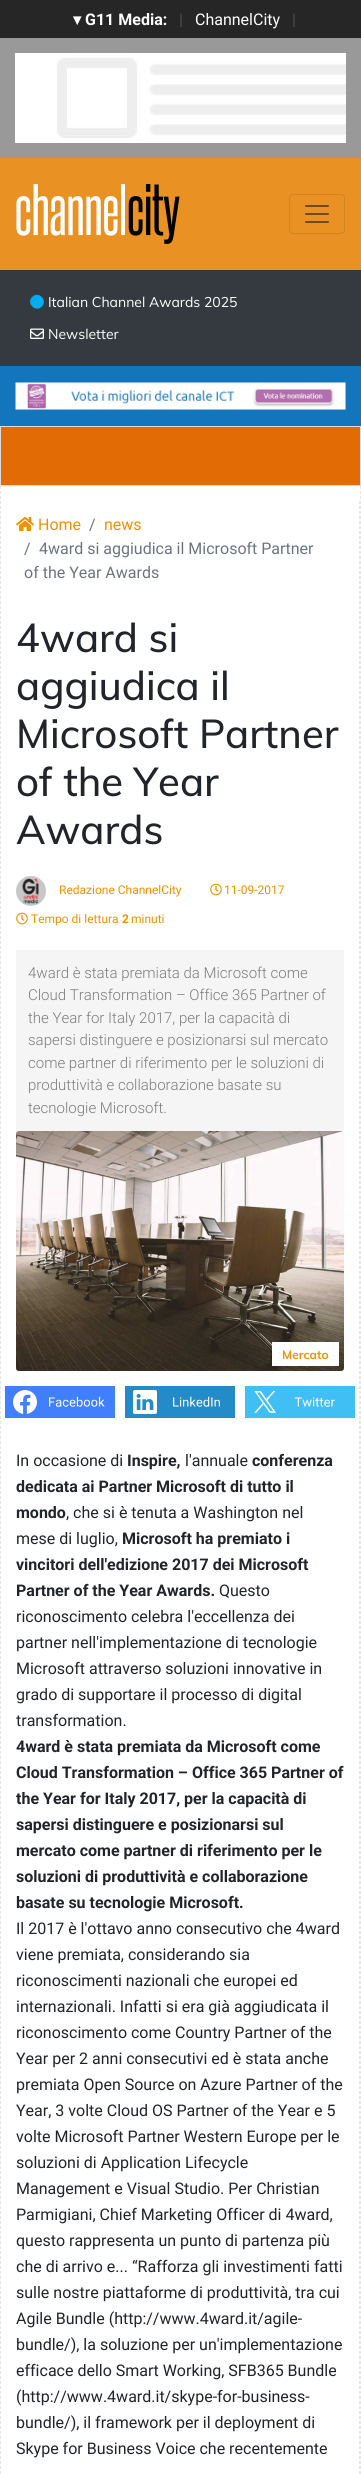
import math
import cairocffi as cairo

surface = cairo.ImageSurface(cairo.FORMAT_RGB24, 361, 2474)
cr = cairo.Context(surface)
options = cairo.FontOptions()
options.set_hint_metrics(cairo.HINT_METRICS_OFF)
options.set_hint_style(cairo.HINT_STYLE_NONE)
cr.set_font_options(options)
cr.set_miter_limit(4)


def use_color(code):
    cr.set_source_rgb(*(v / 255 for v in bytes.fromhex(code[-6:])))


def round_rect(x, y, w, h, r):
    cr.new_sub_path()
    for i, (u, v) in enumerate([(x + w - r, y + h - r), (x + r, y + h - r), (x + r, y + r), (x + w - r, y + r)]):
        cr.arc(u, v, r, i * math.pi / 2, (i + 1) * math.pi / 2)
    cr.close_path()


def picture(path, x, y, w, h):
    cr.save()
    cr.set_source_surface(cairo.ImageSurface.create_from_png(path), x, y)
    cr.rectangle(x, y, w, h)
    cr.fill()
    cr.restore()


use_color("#ffffff")
cr.paint()
use_color("#262626")
cr.rectangle(0, 0, 361, 38)
cr.fill()
cr.select_font_face("DejaVu Sans", cairo.FONT_SLANT_NORMAL, cairo.FONT_WEIGHT_BOLD)
cr.set_font_size(16)
use_color("#ffffff")
cr.move_to(73, 25)
cr.show_text("▾")
cr.select_font_face("Roboto", cairo.FONT_SLANT_NORMAL, cairo.FONT_WEIGHT_BOLD)
cr.move_to(85, 25)
cr.show_text("G11 Media:")
cr.select_font_face("Roboto")
use_color("#4c4c4c")
cr.move_to(179, 25)
cr.show_text("|")
use_color("#ffffff")
cr.move_to(195, 25)
cr.show_text("ChannelCity")
use_color("#4c4c4c")
cr.move_to(292, 25)
cr.show_text("|")
use_color("#999999")
cr.rectangle(0, 38, 361, 120)
cr.fill()
picture("img1.png", 15, 53, 331, 90)
use_color("#e99123")
cr.rectangle(0, 158, 361, 112)
cr.fill()
picture("img2.png", 16, 184, 164, 60)
round_rect(289.5, 194.5, 55, 39, 3.5)
use_color("#d28320")
cr.set_line_width(1)
cr.stroke()
picture("img3.png", 305, 205, 24, 18)
use_color("#343a40")
cr.rectangle(0, 270, 361, 96)
cr.fill()
use_color("#00adee")
cr.new_path()
cr.move_to(32, 297)
cr.curve_to(38.5, 290.5, 48, 300, 42, 306.5)
cr.curve_to(35.5, 313, 26, 303.5, 32, 297)
cr.close_path()
cr.fill()
cr.select_font_face("Muli")
cr.set_font_size(14)
use_color("#ffffff")
cr.move_to(48, 307)
cr.show_text("Italian Channel Awards 2025")
picture("img4.png", 30, 328, 14, 11)
cr.move_to(48, 339)
cr.show_text("Newsletter")
use_color("#1375bc")
cr.rectangle(0, 366, 361, 60)
cr.fill()
picture("img5.png", 15, 382, 331, 28)
use_color("#e36b05")
cr.rectangle(0.5, 426.5, 360, 59)
cr.fill_preserve()
use_color("#dddddd")
cr.stroke()
cr.new_path()
cr.move_to(360.5, 486)
cr.line_to(360.5, 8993)
use_color("#e6e6e6")
cr.set_dash([3, 2])
cr.stroke()
cr.new_path()
cr.move_to(0.5, 486)
cr.line_to(0.5, 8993)
cr.stroke()
cr.new_path()
cr.move_to(359.5, 501)
cr.line_to(359.5, 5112)
cr.stroke()
picture("img6.png", 16, 517, 18, 14)
cr.select_font_face("Roboto")
cr.set_font_size(16)
use_color("#f29100")
cr.move_to(38, 530)
cr.show_text("Home")
use_color("#6c757d")
cr.move_to(89, 530)
cr.show_text("/")
use_color("#f29100")
cr.move_to(104, 530)
cr.show_text("news")
use_color("#6c757d")
cr.move_to(24, 554)
cr.show_text("/")
cr.move_to(39, 554)
cr.show_text("4ward si aggiudica il Microsoft Partner")
cr.move_to(24, 578)
cr.show_text("of the Year Awards")
cr.select_font_face("Muli Medium")
cr.set_font_size(40)
use_color("#212529")
cr.move_to(16, 652)
cr.show_text("4ward si")
cr.move_to(16, 700)
cr.show_text("aggiudica il")
cr.move_to(16, 748)
cr.show_text("Microsoft Partner")
cr.move_to(16, 796)
cr.show_text("of the Year")
cr.move_to(16, 844)
cr.show_text("Awards")
picture("img7.png", 16, 876, 30, 30)
cr.select_font_face("Roboto")
cr.set_font_size(12)
use_color("#f29100")
cr.move_to(59, 894)
cr.show_text("Redazione ChannelCity")
picture("img8.png", 210, 883, 12, 13)
cr.move_to(224, 894)
cr.show_text("11-09-2017")
picture("img8.png", 16, 912, 12, 13)
cr.move_to(31, 923)
cr.show_text("Tempo di lettura")
cr.select_font_face("Roboto", cairo.FONT_SLANT_NORMAL, cairo.FONT_WEIGHT_BOLD)
cr.move_to(122, 923)
cr.show_text("2")
cr.select_font_face("Roboto")
cr.move_to(131, 923)
cr.show_text("minuti")
use_color("#f5f5f5")
cr.rectangle(16, 950, 328, 181)
cr.fill()
cr.select_font_face("Roboto Light")
cr.set_font_size(15)
use_color("#7b7b7b")
cr.move_to(28, 978)
cr.show_text("4ward è stata premiata da Microsoft come")
cr.move_to(28, 1000)
cr.show_text("Cloud Transformation – Office 365 Partner of")
cr.move_to(28, 1023)
cr.show_text("the Year for Italy 2017, per la capacità di")
cr.move_to(28, 1045)
cr.show_text("sapersi distinguere e posizionarsi sul mercato")
cr.move_to(28, 1068)
cr.show_text("come partner di riferimento per le soluzioni di")
cr.move_to(28, 1090)
cr.show_text("produttività e collaborazione basate su")
cr.move_to(28, 1113)
cr.show_text("tecnologie Microsoft.")
picture("img9.png", 16, 1131, 328, 240)
use_color("#ffffff")
cr.rectangle(272, 1342, 67, 24)
cr.fill()
cr.select_font_face("Muli", cairo.FONT_SLANT_NORMAL, cairo.FONT_WEIGHT_BOLD)
cr.set_font_size(12)
use_color("#f29100")
cr.move_to(282, 1359)
cr.show_text("Mercato")
picture("img10.png", 5, 1386, 110, 32)
picture("img11.png", 125, 1386, 110, 32)
picture("img12.png", 245, 1386, 110, 32)
cr.select_font_face("Roboto")
cr.set_font_size(16)
use_color("#212529")
cr.move_to(16, 1466)
cr.show_text("In occasione di")
cr.select_font_face("Roboto", cairo.FONT_SLANT_NORMAL, cairo.FONT_WEIGHT_BOLD)
cr.move_to(127, 1466)
cr.show_text("Inspire,")
cr.select_font_face("Roboto")
cr.move_to(185, 1466)
cr.show_text("l'annuale")
cr.select_font_face("Roboto", cairo.FONT_SLANT_NORMAL, cairo.FONT_WEIGHT_BOLD)
cr.move_to(252, 1466)
cr.show_text("conferenza")
cr.move_to(16, 1492)
cr.show_text("dedicata ai Partner Microsoft di tutto il")
cr.move_to(16, 1518)
cr.show_text("mondo")
cr.select_font_face("Roboto")
cr.move_to(66, 1518)
cr.show_text(", che si è tenuta a Washington nel")
cr.move_to(16, 1544)
cr.show_text("mese di luglio,")
cr.select_font_face("Roboto", cairo.FONT_SLANT_NORMAL, cairo.FONT_WEIGHT_BOLD)
cr.move_to(122, 1544)
cr.show_text("Microsoft ha premiato i")
cr.move_to(16, 1570)
cr.show_text("vincitori dell'edizione 2017 dei Microsoft")
cr.move_to(16, 1596)
cr.show_text("Partner of the Year Awards.")
cr.select_font_face("Roboto")
cr.move_to(219, 1596)
cr.show_text("Questo")
cr.move_to(16, 1622)
cr.show_text("riconoscimento celebra l'eccellenza dei")
cr.move_to(16, 1648)
cr.show_text("partner nell'implementazione di tecnologie")
cr.move_to(16, 1674)
cr.show_text("Microsoft attraverso soluzioni innovative in")
cr.move_to(16, 1700)
cr.show_text("grado di supportare il processo di digital")
cr.move_to(16, 1726)
cr.show_text("transformation.")
cr.select_font_face("Roboto", cairo.FONT_SLANT_NORMAL, cairo.FONT_WEIGHT_BOLD)
cr.move_to(16, 1752)
cr.show_text("4ward è stata premiata da Microsoft come")
cr.move_to(16, 1778)
cr.show_text("Cloud Transformation – Office 365 Partner of")
cr.move_to(16, 1804)
cr.show_text("the Year for Italy 2017, per la capacità di")
cr.move_to(16, 1830)
cr.show_text("sapersi distinguere e posizionarsi sul")
cr.move_to(16, 1856)
cr.show_text("mercato come partner di riferimento per le")
cr.move_to(16, 1882)
cr.show_text("soluzioni di produttività e collaborazione")
cr.move_to(16, 1908)
cr.show_text("basate su tecnologie Microsoft.")
cr.select_font_face("Roboto")
cr.move_to(16, 1934)
cr.show_text("Il 2017 è l'ottavo anno consecutivo che 4ward")
cr.move_to(16, 1960)
cr.show_text("viene premiata, considerando sia")
cr.move_to(16, 1986)
cr.show_text("riconoscimenti nazionali che europei ed")
cr.move_to(16, 2012)
cr.show_text("internazionali. Infatti si era già aggiudicata il")
cr.move_to(16, 2038)
cr.show_text("riconoscimento come Country Partner of the")
cr.move_to(16, 2064)
cr.show_text("Year per 2 anni consecutivi ed è stata anche")
cr.move_to(16, 2090)
cr.show_text("premiata Open Source on Azure Partner of the")
cr.move_to(16, 2116)
cr.show_text("Year, 3 volte Cloud OS Partner of the Year e 5")
cr.move_to(16, 2142)
cr.show_text("volte Microsoft Partner Western Europe per le")
cr.move_to(16, 2168)
cr.show_text("soluzioni di Application Lifecycle")
cr.move_to(16, 2194)
cr.show_text("Management e Visual Studio. Per Christian")
cr.move_to(16, 2220)
cr.show_text("Parmigiani, Chief Marketing Officer di 4ward,")
cr.move_to(16, 2246)
cr.show_text("questo rappresenta un punto di partenza più")
cr.move_to(16, 2272)
cr.show_text("che di arrivo e... “Rafforza gli investimenti fatti")
cr.move_to(16, 2298)
cr.show_text("sulle nostre piattaforme di produttività, tra cui")
cr.move_to(16, 2324)
cr.show_text("Agile Bundle (http://www.4ward.it/agile-")
cr.move_to(16, 2350)
cr.show_text("bundle/), la soluzione per un'implementazione")
cr.move_to(16, 2376)
cr.show_text("efficace dello Smart Working, SFB365 Bundle")
cr.move_to(16, 2402)
cr.show_text("(http://www.4ward.it/skype-for-business-")
cr.move_to(16, 2428)
cr.show_text("bundle/), il framework per il deployment di")
cr.move_to(16, 2454)
cr.show_text("Skype for Business Voice che recentemente")
surface.write_to_png("result.png")
